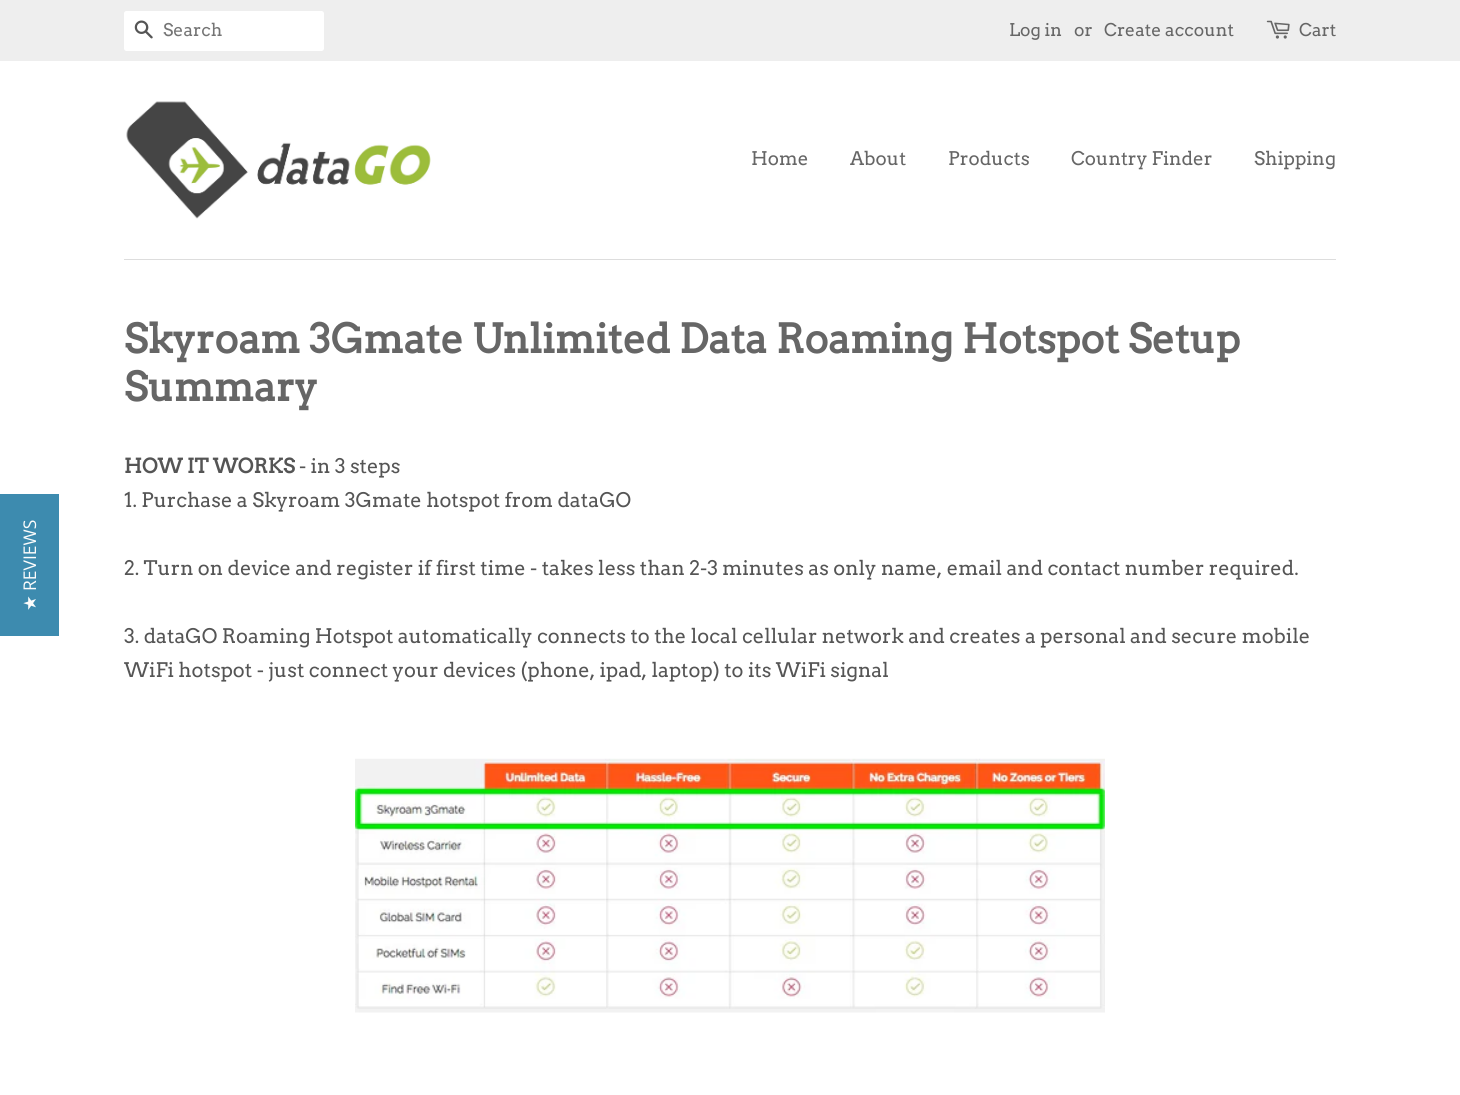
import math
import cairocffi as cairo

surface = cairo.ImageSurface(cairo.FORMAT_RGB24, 1460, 1095)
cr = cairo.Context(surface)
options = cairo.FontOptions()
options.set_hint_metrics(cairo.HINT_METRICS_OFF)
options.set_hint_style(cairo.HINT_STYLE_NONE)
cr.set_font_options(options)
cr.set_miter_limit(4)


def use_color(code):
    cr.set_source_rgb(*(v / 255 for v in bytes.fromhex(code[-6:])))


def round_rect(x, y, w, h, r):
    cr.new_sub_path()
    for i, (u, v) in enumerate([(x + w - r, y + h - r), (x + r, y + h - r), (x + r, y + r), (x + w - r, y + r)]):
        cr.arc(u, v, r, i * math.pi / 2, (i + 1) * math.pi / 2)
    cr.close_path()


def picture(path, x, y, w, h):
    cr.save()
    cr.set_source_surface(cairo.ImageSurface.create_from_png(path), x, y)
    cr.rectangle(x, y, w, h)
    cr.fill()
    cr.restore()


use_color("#ffffff")
cr.paint()
use_color("#eeeeee")
cr.rectangle(0, 0, 1460, 61)
cr.fill()
use_color("#ffffff")
round_rect(124, 11, 200, 40, 2.5)
cr.fill()
picture("img1.png", 134, 20, 19, 19)
cr.select_font_face("Arvo")
cr.set_font_size(17.5)
use_color("#757575")
cr.move_to(163, 36)
cr.show_text("Search")
use_color("#666666")
cr.move_to(1009, 36)
cr.show_text("Log in")
cr.move_to(1074, 36)
cr.show_text("or")
cr.move_to(1104, 36)
cr.show_text("Create account")
picture("img2.png", 1266, 20, 24, 19)
cr.move_to(1299, 36)
cr.show_text("Cart")
use_color("#dddddd")
cr.rectangle(124, 259, 1212, 1)
cr.fill()
picture("img3.png", 126, 101, 305, 118)
cr.set_font_size(18.75)
use_color("#666666")
cr.move_to(751, 165)
cr.show_text("Home")
cr.move_to(850, 165)
cr.show_text("About")
cr.move_to(948, 165)
cr.show_text("Products")
cr.move_to(1071, 165)
cr.show_text("Country Finder")
cr.move_to(1254, 165)
cr.show_text("Shipping")
use_color("#3d8baf")
cr.rectangle(0, 494, 59, 142)
cr.fill()
cr.select_font_face("Open Sans")
cr.set_font_size(17.5)
use_color("#fcfcfc")
cr.save()
cr.translate(36, 591)
cr.rotate(-90 * math.pi / 180)
cr.move_to(0, 0)
cr.show_text("REVIEWS")
cr.restore()
cr.select_font_face("DejaVu Sans")
cr.save()
cr.translate(36, 611)
cr.rotate(-90 * math.pi / 180)
cr.move_to(0, 0)
cr.show_text("★")
cr.restore()
cr.select_font_face("Arvo", cairo.FONT_SLANT_NORMAL, cairo.FONT_WEIGHT_BOLD)
cr.set_font_size(40)
use_color("#666666")
cr.move_to(124, 353)
cr.show_text("Skyroam 3Gmate Unlimited Data Roaming Hotspot Setup")
cr.move_to(124, 401)
cr.show_text("Summary")
cr.set_font_size(20)
use_color("#555555")
cr.move_to(124, 473)
cr.show_text("HOW IT WORKS")
cr.select_font_face("Arvo")
cr.move_to(299, 473)
cr.show_text("- in 3 steps")
cr.move_to(124, 507)
cr.show_text("1. Purchase a Skyroam 3Gmate hotspot from dataGO")
cr.move_to(124, 575)
cr.show_text("2. Turn on device and register if first time - takes less than 2-3 minutes as only name, email and contact number required.")
cr.move_to(124, 643)
cr.show_text("3. dataGO Roaming Hotspot automatically connects to the local cellular network and creates a personal and secure mobile")
cr.move_to(124, 677)
cr.show_text("WiFi hotspot - just connect your devices (phone, ipad, laptop) to its WiFi signal")
picture("img4.png", 355, 758, 750, 255)
surface.write_to_png("result.png")
